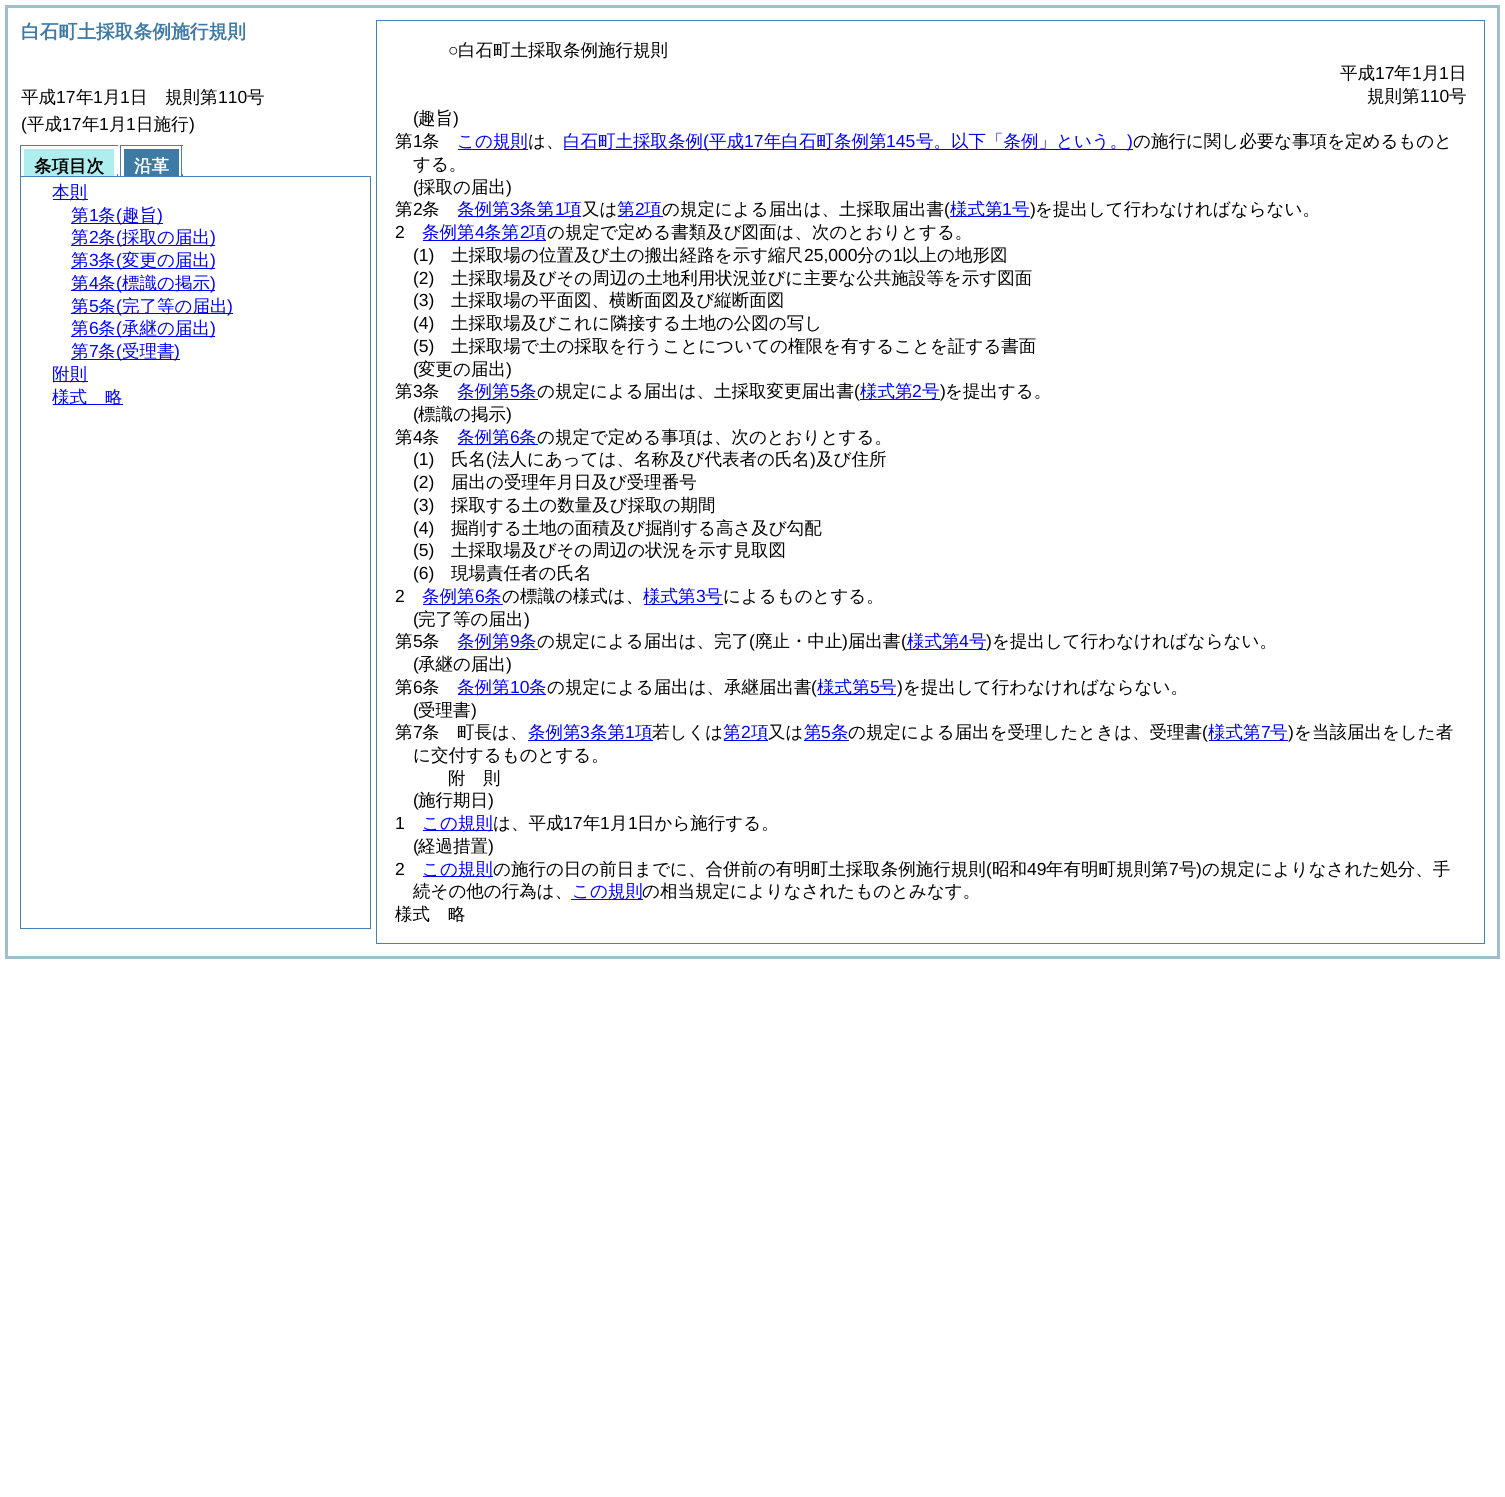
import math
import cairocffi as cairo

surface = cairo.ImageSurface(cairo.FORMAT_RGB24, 1505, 1497)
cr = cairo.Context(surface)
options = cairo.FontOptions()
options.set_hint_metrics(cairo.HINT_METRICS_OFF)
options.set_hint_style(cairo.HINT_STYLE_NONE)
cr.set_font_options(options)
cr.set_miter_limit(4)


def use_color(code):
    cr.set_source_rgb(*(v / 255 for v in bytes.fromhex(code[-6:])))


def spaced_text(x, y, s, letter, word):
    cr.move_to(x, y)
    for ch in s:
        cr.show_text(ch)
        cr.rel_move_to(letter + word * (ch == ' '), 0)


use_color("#ffffff")
cr.paint()
cr.rectangle(6.5, 6.5, 1492, 951)
use_color("#a0bfcc")
cr.set_line_width(3)
cr.stroke()
cr.select_font_face("WenQuanYi Zen Hei", cairo.FONT_SLANT_NORMAL, cairo.FONT_WEIGHT_BOLD)
cr.set_font_size(18.75)
use_color("#3d7aa4")
cr.move_to(21, 38)
cr.show_text("白石町土採取条例施行規則")
cr.select_font_face("WenQuanYi Zen Hei Medium")
cr.set_font_size(17.5)
use_color("#000000")
cr.move_to(21, 103)
cr.show_text("平成")
cr.select_font_face("Liberation Sans")
cr.move_to(56, 103)
cr.show_text("17")
cr.select_font_face("WenQuanYi Zen Hei Medium")
cr.move_to(76, 103)
cr.show_text("年")
cr.select_font_face("Liberation Sans")
cr.move_to(93, 103)
cr.show_text("1")
cr.select_font_face("WenQuanYi Zen Hei Medium")
cr.move_to(103, 103)
cr.show_text("月")
cr.select_font_face("Liberation Sans")
cr.move_to(120, 103)
cr.show_text("1")
cr.select_font_face("WenQuanYi Zen Hei Medium")
cr.move_to(130, 103)
cr.show_text("日　規則第")
cr.select_font_face("Liberation Sans")
cr.move_to(218, 103)
cr.show_text("110")
cr.select_font_face("WenQuanYi Zen Hei Medium")
cr.move_to(247, 103)
cr.show_text("号")
cr.select_font_face("Liberation Sans")
cr.move_to(21, 130)
cr.show_text("(")
cr.select_font_face("WenQuanYi Zen Hei Medium")
cr.move_to(27, 130)
cr.show_text("平成")
cr.select_font_face("Liberation Sans")
cr.move_to(62, 130)
cr.show_text("17")
cr.select_font_face("WenQuanYi Zen Hei Medium")
cr.move_to(82, 130)
cr.show_text("年")
cr.select_font_face("Liberation Sans")
cr.move_to(99, 130)
cr.show_text("1")
cr.select_font_face("WenQuanYi Zen Hei Medium")
cr.move_to(109, 130)
cr.show_text("月")
cr.select_font_face("Liberation Sans")
cr.move_to(126, 130)
cr.show_text("1")
cr.select_font_face("WenQuanYi Zen Hei Medium")
cr.move_to(136, 130)
cr.show_text("日施行")
cr.select_font_face("Liberation Sans")
cr.move_to(189, 130)
cr.show_text(")")
use_color("#4682b4")
cr.rectangle(20, 145, 98, 1)
cr.fill()
cr.rectangle(117, 174, 1, 2)
cr.fill()
cr.rectangle(20, 145, 1, 33)
cr.fill()
use_color("#afeeee")
cr.rectangle(24, 149, 90, 27)
cr.fill()
cr.select_font_face("WenQuanYi Zen Hei", cairo.FONT_SLANT_NORMAL, cairo.FONT_WEIGHT_BOLD)
use_color("#000000")
cr.move_to(34, 172)
cr.show_text("条項目次")
use_color("#4682b4")
cr.rectangle(120, 145, 63, 1)
cr.fill()
cr.rectangle(181, 145, 1, 33)
cr.fill()
cr.rectangle(181, 174, 2, 2)
cr.fill()
cr.rectangle(120, 145, 1, 33)
cr.fill()
use_color("#3d7aa4")
cr.rectangle(124, 149, 55, 27)
cr.fill()
use_color("#ffffff")
cr.move_to(134, 172)
cr.show_text("沿革")
cr.rectangle(120, 177, 62, 1)
cr.fill()
cr.rectangle(20.5, 176.5, 350, 752)
use_color("#4682b4")
cr.set_line_width(1)
cr.stroke()
use_color("#0000ff")
cr.rectangle(53, 199, 35, 1)
cr.fill()
cr.select_font_face("WenQuanYi Zen Hei Medium")
cr.move_to(52, 198)
cr.show_text("本則")
cr.rectangle(71, 223, 92, 1)
cr.fill()
cr.move_to(71, 221)
cr.show_text("第")
cr.select_font_face("Liberation Sans")
cr.move_to(89, 221)
cr.show_text("1")
cr.select_font_face("WenQuanYi Zen Hei Medium")
cr.move_to(98, 221)
cr.show_text("条")
cr.select_font_face("Liberation Sans")
cr.move_to(116, 221)
cr.show_text("(")
cr.select_font_face("WenQuanYi Zen Hei Medium")
cr.move_to(122, 221)
cr.show_text("趣旨")
cr.select_font_face("Liberation Sans")
cr.move_to(157, 221)
cr.show_text(")")
cr.rectangle(71, 245, 144, 1)
cr.fill()
cr.select_font_face("WenQuanYi Zen Hei Medium")
cr.move_to(71, 243)
cr.show_text("第")
cr.select_font_face("Liberation Sans")
cr.move_to(89, 243)
cr.show_text("2")
cr.select_font_face("WenQuanYi Zen Hei Medium")
cr.move_to(98, 243)
cr.show_text("条")
cr.select_font_face("Liberation Sans")
cr.move_to(116, 243)
cr.show_text("(")
cr.select_font_face("WenQuanYi Zen Hei Medium")
cr.move_to(122, 243)
cr.show_text("採取の届出")
cr.select_font_face("Liberation Sans")
cr.move_to(210, 243)
cr.show_text(")")
cr.rectangle(71, 268, 144, 1)
cr.fill()
cr.select_font_face("WenQuanYi Zen Hei Medium")
cr.move_to(71, 266)
cr.show_text("第")
cr.select_font_face("Liberation Sans")
cr.move_to(89, 266)
cr.show_text("3")
cr.select_font_face("WenQuanYi Zen Hei Medium")
cr.move_to(98, 266)
cr.show_text("条")
cr.select_font_face("Liberation Sans")
cr.move_to(116, 266)
cr.show_text("(")
cr.select_font_face("WenQuanYi Zen Hei Medium")
cr.move_to(122, 266)
cr.show_text("変更の届出")
cr.select_font_face("Liberation Sans")
cr.move_to(210, 266)
cr.show_text(")")
cr.rectangle(71, 290, 144, 1)
cr.fill()
cr.select_font_face("WenQuanYi Zen Hei Medium")
cr.move_to(71, 289)
cr.show_text("第")
cr.select_font_face("Liberation Sans")
cr.move_to(89, 289)
cr.show_text("4")
cr.select_font_face("WenQuanYi Zen Hei Medium")
cr.move_to(98, 289)
cr.show_text("条")
cr.select_font_face("Liberation Sans")
cr.move_to(116, 289)
cr.show_text("(")
cr.select_font_face("WenQuanYi Zen Hei Medium")
cr.move_to(122, 289)
cr.show_text("標識の掲示")
cr.select_font_face("Liberation Sans")
cr.move_to(210, 289)
cr.show_text(")")
cr.rectangle(71, 313, 162, 1)
cr.fill()
cr.select_font_face("WenQuanYi Zen Hei Medium")
cr.move_to(71, 312)
cr.show_text("第")
cr.select_font_face("Liberation Sans")
cr.move_to(89, 312)
cr.show_text("5")
cr.select_font_face("WenQuanYi Zen Hei Medium")
cr.move_to(98, 312)
cr.show_text("条")
cr.select_font_face("Liberation Sans")
cr.move_to(116, 312)
cr.show_text("(")
cr.select_font_face("WenQuanYi Zen Hei Medium")
cr.move_to(122, 312)
cr.show_text("完了等の届出")
cr.select_font_face("Liberation Sans")
cr.move_to(227, 312)
cr.show_text(")")
cr.rectangle(71, 336, 144, 1)
cr.fill()
cr.select_font_face("WenQuanYi Zen Hei Medium")
cr.move_to(71, 334)
cr.show_text("第")
cr.select_font_face("Liberation Sans")
cr.move_to(89, 334)
cr.show_text("6")
cr.select_font_face("WenQuanYi Zen Hei Medium")
cr.move_to(98, 334)
cr.show_text("条")
cr.select_font_face("Liberation Sans")
cr.move_to(116, 334)
cr.show_text("(")
cr.select_font_face("WenQuanYi Zen Hei Medium")
cr.move_to(122, 334)
cr.show_text("承継の届出")
cr.select_font_face("Liberation Sans")
cr.move_to(210, 334)
cr.show_text(")")
cr.rectangle(71, 359, 109, 1)
cr.fill()
cr.select_font_face("WenQuanYi Zen Hei Medium")
cr.move_to(71, 357)
cr.show_text("第")
cr.select_font_face("Liberation Sans")
cr.move_to(89, 357)
cr.show_text("7")
cr.select_font_face("WenQuanYi Zen Hei Medium")
cr.move_to(98, 357)
cr.show_text("条")
cr.select_font_face("Liberation Sans")
cr.move_to(116, 357)
cr.show_text("(")
cr.select_font_face("WenQuanYi Zen Hei Medium")
cr.move_to(122, 357)
cr.show_text("受理書")
cr.select_font_face("Liberation Sans")
cr.move_to(174, 357)
cr.show_text(")")
cr.rectangle(53, 381, 35, 1)
cr.fill()
cr.select_font_face("WenQuanYi Zen Hei Medium")
cr.move_to(52, 380)
cr.show_text("附則")
cr.rectangle(53, 404, 70, 1)
cr.fill()
cr.move_to(52, 403)
cr.show_text("様式")
cr.move_to(105, 403)
cr.show_text("略")
cr.rectangle(376.5, 20.5, 1108, 923)
use_color("#4682b4")
cr.stroke()
cr.select_font_face("Liberation Sans")
use_color("#000000")
cr.move_to(448, 56)
cr.show_text("○")
cr.select_font_face("WenQuanYi Zen Hei Medium")
cr.move_to(458, 56)
cr.show_text("白石町土採取条例施行規則")
cr.move_to(1340, 79)
cr.show_text("平成")
cr.select_font_face("Liberation Sans")
cr.move_to(1375, 79)
cr.show_text("17")
cr.select_font_face("WenQuanYi Zen Hei Medium")
cr.move_to(1394, 79)
cr.show_text("年")
cr.select_font_face("Liberation Sans")
cr.move_to(1412, 79)
cr.show_text("1")
cr.select_font_face("WenQuanYi Zen Hei Medium")
cr.move_to(1422, 79)
cr.show_text("月")
cr.select_font_face("Liberation Sans")
cr.move_to(1439, 79)
cr.show_text("1")
cr.select_font_face("WenQuanYi Zen Hei Medium")
cr.move_to(1449, 79)
cr.show_text("日")
cr.move_to(1367, 102)
cr.show_text("規則第")
cr.select_font_face("Liberation Sans")
cr.move_to(1420, 102)
cr.show_text("110")
cr.select_font_face("WenQuanYi Zen Hei Medium")
cr.move_to(1449, 102)
cr.show_text("号")
cr.select_font_face("Liberation Sans")
cr.move_to(413, 124)
cr.show_text("(")
cr.select_font_face("WenQuanYi Zen Hei Medium")
cr.move_to(418, 124)
cr.show_text("趣旨")
cr.select_font_face("Liberation Sans")
cr.move_to(453, 124)
cr.show_text(")")
cr.select_font_face("WenQuanYi Zen Hei Medium")
cr.move_to(395, 147)
cr.show_text("第")
cr.select_font_face("Liberation Sans")
cr.move_to(413, 147)
cr.show_text("1")
cr.select_font_face("WenQuanYi Zen Hei Medium")
cr.move_to(422, 147)
cr.show_text("条")
use_color("#0000ff")
cr.rectangle(458, 149, 70, 1)
cr.fill()
cr.move_to(457, 147)
cr.show_text("この規則")
use_color("#000000")
cr.move_to(528, 147)
cr.show_text("は、")
use_color("#0000ff")
cr.rectangle(564, 149, 569, 1)
cr.fill()
cr.move_to(563, 147)
cr.show_text("白石町土採取条例")
cr.select_font_face("Liberation Sans")
cr.move_to(703, 147)
cr.show_text("(")
cr.select_font_face("WenQuanYi Zen Hei Medium")
cr.move_to(709, 147)
cr.show_text("平成")
cr.select_font_face("Liberation Sans")
cr.move_to(744, 147)
cr.show_text("17")
cr.select_font_face("WenQuanYi Zen Hei Medium")
cr.move_to(764, 147)
cr.show_text("年白石町条例第")
cr.select_font_face("Liberation Sans")
cr.move_to(886, 147)
cr.show_text("145")
cr.select_font_face("WenQuanYi Zen Hei Medium")
cr.move_to(916, 147)
cr.show_text("号。以下「条例」という。")
cr.select_font_face("Liberation Sans")
cr.move_to(1127, 147)
cr.show_text(")")
cr.select_font_face("WenQuanYi Zen Hei Medium")
use_color("#000000")
cr.move_to(1133, 147)
cr.show_text("の施行に関し必要な事項を定めるものと")
cr.move_to(413, 170)
cr.show_text("する。")
cr.select_font_face("Liberation Sans")
cr.move_to(413, 193)
cr.show_text("(")
cr.select_font_face("WenQuanYi Zen Hei Medium")
cr.move_to(418, 193)
cr.show_text("採取の届出")
cr.select_font_face("Liberation Sans")
cr.move_to(506, 193)
cr.show_text(")")
cr.select_font_face("WenQuanYi Zen Hei Medium")
cr.move_to(395, 215)
cr.show_text("第")
cr.select_font_face("Liberation Sans")
cr.move_to(413, 215)
cr.show_text("2")
cr.select_font_face("WenQuanYi Zen Hei Medium")
cr.move_to(422, 215)
cr.show_text("条")
use_color("#0000ff")
cr.rectangle(458, 216, 123, 1)
cr.fill()
cr.move_to(457, 215)
cr.show_text("条例第")
cr.select_font_face("Liberation Sans")
cr.move_to(510, 215)
cr.show_text("3")
cr.select_font_face("WenQuanYi Zen Hei Medium")
cr.move_to(519, 215)
cr.show_text("条第")
cr.select_font_face("Liberation Sans")
cr.move_to(555, 215)
cr.show_text("1")
cr.select_font_face("WenQuanYi Zen Hei Medium")
cr.move_to(564, 215)
cr.show_text("項")
use_color("#000000")
cr.move_to(582, 215)
cr.show_text("又は")
use_color("#0000ff")
cr.rectangle(618, 216, 45, 1)
cr.fill()
cr.move_to(617, 215)
cr.show_text("第")
cr.select_font_face("Liberation Sans")
cr.move_to(635, 215)
cr.show_text("2")
cr.select_font_face("WenQuanYi Zen Hei Medium")
cr.move_to(644, 215)
cr.show_text("項")
use_color("#000000")
cr.move_to(662, 215)
cr.show_text("の規定による届出は、土採取届出書")
cr.select_font_face("Liberation Sans")
cr.move_to(944, 215)
cr.show_text("(")
use_color("#0000ff")
cr.rectangle(950, 216, 80, 1)
cr.fill()
cr.select_font_face("WenQuanYi Zen Hei Medium")
cr.move_to(950, 215)
cr.show_text("様式第")
cr.select_font_face("Liberation Sans")
cr.move_to(1002, 215)
cr.show_text("1")
cr.select_font_face("WenQuanYi Zen Hei Medium")
cr.move_to(1012, 215)
cr.show_text("号")
cr.select_font_face("Liberation Sans")
use_color("#000000")
cr.move_to(1030, 215)
cr.show_text(")")
cr.select_font_face("WenQuanYi Zen Hei Medium")
cr.move_to(1035, 215)
cr.show_text("を提出して行わなければならない。")
cr.select_font_face("Liberation Sans")
cr.move_to(395, 238)
cr.show_text("2")
use_color("#0000ff")
cr.rectangle(423, 240, 123, 1)
cr.fill()
cr.select_font_face("WenQuanYi Zen Hei Medium")
cr.move_to(422, 238)
cr.show_text("条例第")
cr.select_font_face("Liberation Sans")
cr.move_to(475, 238)
cr.show_text("4")
cr.select_font_face("WenQuanYi Zen Hei Medium")
cr.move_to(484, 238)
cr.show_text("条第")
cr.select_font_face("Liberation Sans")
cr.move_to(520, 238)
cr.show_text("2")
cr.select_font_face("WenQuanYi Zen Hei Medium")
cr.move_to(529, 238)
cr.show_text("項")
use_color("#000000")
cr.move_to(547, 238)
cr.show_text("の規定で定める書類及び図面は、次のとおりとする。")
cr.select_font_face("Liberation Sans")
cr.move_to(413, 261)
cr.show_text("(1)")
cr.select_font_face("WenQuanYi Zen Hei Medium")
cr.move_to(451, 261)
cr.show_text("土採取場の位置及び土の搬出経路を示す縮尺")
cr.select_font_face("Liberation Sans")
cr.move_to(804, 261)
cr.show_text("25,000")
cr.select_font_face("WenQuanYi Zen Hei Medium")
cr.move_to(857, 261)
cr.show_text("分の")
cr.select_font_face("Liberation Sans")
cr.move_to(893, 261)
cr.show_text("1")
cr.select_font_face("WenQuanYi Zen Hei Medium")
cr.move_to(902, 261)
cr.show_text("以上の地形図")
cr.select_font_face("Liberation Sans")
cr.move_to(413, 284)
cr.show_text("(2)")
cr.select_font_face("WenQuanYi Zen Hei Medium")
cr.move_to(451, 284)
cr.show_text("土採取場及びその周辺の土地利用状況並びに主要な公共施設等を示す図面")
cr.select_font_face("Liberation Sans")
cr.move_to(413, 306)
cr.show_text("(3)")
cr.select_font_face("WenQuanYi Zen Hei Medium")
cr.move_to(451, 306)
cr.show_text("土採取場の平面図、横断面図及び縦断面図")
cr.select_font_face("Liberation Sans")
cr.move_to(413, 329)
cr.show_text("(4)")
cr.select_font_face("WenQuanYi Zen Hei Medium")
cr.move_to(451, 329)
cr.show_text("土採取場及びこれに隣接する土地の公図の写し")
cr.select_font_face("Liberation Sans")
cr.move_to(413, 352)
cr.show_text("(5)")
cr.select_font_face("WenQuanYi Zen Hei Medium")
cr.move_to(451, 352)
cr.show_text("土採取場で土の採取を行うことについての権限を有することを証する書面")
cr.select_font_face("Liberation Sans")
cr.move_to(413, 375)
cr.show_text("(")
cr.select_font_face("WenQuanYi Zen Hei Medium")
cr.move_to(418, 375)
cr.show_text("変更の届出")
cr.select_font_face("Liberation Sans")
cr.move_to(506, 375)
cr.show_text(")")
cr.select_font_face("WenQuanYi Zen Hei Medium")
cr.move_to(395, 397)
cr.show_text("第")
cr.select_font_face("Liberation Sans")
cr.move_to(413, 397)
cr.show_text("3")
cr.select_font_face("WenQuanYi Zen Hei Medium")
cr.move_to(422, 397)
cr.show_text("条")
use_color("#0000ff")
cr.rectangle(458, 399, 80, 1)
cr.fill()
cr.move_to(457, 397)
cr.show_text("条例第")
cr.select_font_face("Liberation Sans")
cr.move_to(510, 397)
cr.show_text("5")
cr.select_font_face("WenQuanYi Zen Hei Medium")
cr.move_to(519, 397)
cr.show_text("条")
use_color("#000000")
cr.move_to(537, 397)
cr.show_text("の規定による届出は、土採取変更届出書")
cr.select_font_face("Liberation Sans")
cr.move_to(854, 397)
cr.show_text("(")
use_color("#0000ff")
cr.rectangle(860, 399, 80, 1)
cr.fill()
cr.select_font_face("WenQuanYi Zen Hei Medium")
cr.move_to(860, 397)
cr.show_text("様式第")
cr.select_font_face("Liberation Sans")
cr.move_to(912, 397)
cr.show_text("2")
cr.select_font_face("WenQuanYi Zen Hei Medium")
cr.move_to(922, 397)
cr.show_text("号")
cr.select_font_face("Liberation Sans")
use_color("#000000")
cr.move_to(940, 397)
cr.show_text(")")
cr.select_font_face("WenQuanYi Zen Hei Medium")
cr.move_to(945, 397)
cr.show_text("を提出する。")
cr.select_font_face("Liberation Sans")
cr.move_to(413, 420)
cr.show_text("(")
cr.select_font_face("WenQuanYi Zen Hei Medium")
cr.move_to(418, 420)
cr.show_text("標識の掲示")
cr.select_font_face("Liberation Sans")
cr.move_to(506, 420)
cr.show_text(")")
cr.select_font_face("WenQuanYi Zen Hei Medium")
cr.move_to(395, 443)
cr.show_text("第")
cr.select_font_face("Liberation Sans")
cr.move_to(413, 443)
cr.show_text("4")
cr.select_font_face("WenQuanYi Zen Hei Medium")
cr.move_to(422, 443)
cr.show_text("条")
use_color("#0000ff")
cr.rectangle(458, 444, 80, 1)
cr.fill()
cr.move_to(457, 443)
cr.show_text("条例第")
cr.select_font_face("Liberation Sans")
cr.move_to(510, 443)
cr.show_text("6")
cr.select_font_face("WenQuanYi Zen Hei Medium")
cr.move_to(519, 443)
cr.show_text("条")
use_color("#000000")
cr.move_to(537, 443)
cr.show_text("の規定で定める事項は、次のとおりとする。")
cr.select_font_face("Liberation Sans")
cr.move_to(413, 465)
cr.show_text("(1)")
cr.select_font_face("WenQuanYi Zen Hei Medium")
cr.move_to(451, 465)
cr.show_text("氏名")
cr.select_font_face("Liberation Sans")
cr.move_to(486, 465)
cr.show_text("(")
cr.select_font_face("WenQuanYi Zen Hei Medium")
cr.move_to(492, 465)
cr.show_text("法人にあっては、名称及び代表者の氏名")
cr.select_font_face("Liberation Sans")
cr.move_to(810, 465)
cr.show_text(")")
cr.select_font_face("WenQuanYi Zen Hei Medium")
cr.move_to(816, 465)
cr.show_text("及び住所")
cr.select_font_face("Liberation Sans")
cr.move_to(413, 488)
cr.show_text("(2)")
cr.select_font_face("WenQuanYi Zen Hei Medium")
cr.move_to(451, 488)
cr.show_text("届出の受理年月日及び受理番号")
cr.select_font_face("Liberation Sans")
cr.move_to(413, 511)
cr.show_text("(3)")
cr.select_font_face("WenQuanYi Zen Hei Medium")
cr.move_to(451, 511)
cr.show_text("採取する土の数量及び採取の期間")
cr.select_font_face("Liberation Sans")
cr.move_to(413, 534)
cr.show_text("(4)")
cr.select_font_face("WenQuanYi Zen Hei Medium")
cr.move_to(451, 534)
cr.show_text("掘削する土地の面積及び掘削する高さ及び勾配")
cr.select_font_face("Liberation Sans")
cr.move_to(413, 556)
cr.show_text("(5)")
cr.select_font_face("WenQuanYi Zen Hei Medium")
cr.move_to(451, 556)
cr.show_text("土採取場及びその周辺の状況を示す見取図")
cr.select_font_face("Liberation Sans")
cr.move_to(413, 579)
cr.show_text("(6)")
cr.select_font_face("WenQuanYi Zen Hei Medium")
cr.move_to(451, 579)
cr.show_text("現場責任者の氏名")
cr.select_font_face("Liberation Sans")
cr.move_to(395, 602)
cr.show_text("2")
use_color("#0000ff")
cr.rectangle(423, 604, 80, 1)
cr.fill()
cr.select_font_face("WenQuanYi Zen Hei Medium")
cr.move_to(422, 602)
cr.show_text("条例第")
cr.select_font_face("Liberation Sans")
cr.move_to(475, 602)
cr.show_text("6")
cr.select_font_face("WenQuanYi Zen Hei Medium")
cr.move_to(484, 602)
cr.show_text("条")
use_color("#000000")
cr.move_to(502, 602)
cr.show_text("の標識の様式は、")
use_color("#0000ff")
cr.rectangle(644, 604, 79, 1)
cr.fill()
cr.move_to(643, 602)
cr.show_text("様式第")
cr.select_font_face("Liberation Sans")
cr.move_to(696, 602)
cr.show_text("3")
cr.select_font_face("WenQuanYi Zen Hei Medium")
cr.move_to(705, 602)
cr.show_text("号")
use_color("#000000")
cr.move_to(723, 602)
cr.show_text("によるものとする。")
cr.select_font_face("Liberation Sans")
cr.move_to(413, 625)
cr.show_text("(")
cr.select_font_face("WenQuanYi Zen Hei Medium")
cr.move_to(418, 625)
cr.show_text("完了等の届出")
cr.select_font_face("Liberation Sans")
cr.move_to(524, 625)
cr.show_text(")")
cr.select_font_face("WenQuanYi Zen Hei Medium")
cr.move_to(395, 647)
cr.show_text("第")
cr.select_font_face("Liberation Sans")
cr.move_to(413, 647)
cr.show_text("5")
cr.select_font_face("WenQuanYi Zen Hei Medium")
cr.move_to(422, 647)
cr.show_text("条")
use_color("#0000ff")
cr.rectangle(458, 649, 80, 1)
cr.fill()
cr.move_to(457, 647)
cr.show_text("条例第")
cr.select_font_face("Liberation Sans")
cr.move_to(510, 647)
cr.show_text("9")
cr.select_font_face("WenQuanYi Zen Hei Medium")
cr.move_to(519, 647)
cr.show_text("条")
use_color("#000000")
cr.move_to(537, 647)
cr.show_text("の規定による届出は、完了")
cr.select_font_face("Liberation Sans")
cr.move_to(749, 647)
cr.show_text("(")
cr.select_font_face("WenQuanYi Zen Hei Medium")
cr.move_to(755, 647)
cr.show_text("廃止・中止")
cr.select_font_face("Liberation Sans")
cr.move_to(842, 647)
cr.show_text(")")
cr.select_font_face("WenQuanYi Zen Hei Medium")
cr.move_to(848, 647)
cr.show_text("届出書")
cr.select_font_face("Liberation Sans")
cr.move_to(901, 647)
cr.show_text("(")
use_color("#0000ff")
cr.rectangle(906, 649, 80, 1)
cr.fill()
cr.select_font_face("WenQuanYi Zen Hei Medium")
cr.move_to(907, 647)
cr.show_text("様式第")
cr.select_font_face("Liberation Sans")
cr.move_to(959, 647)
cr.show_text("4")
cr.select_font_face("WenQuanYi Zen Hei Medium")
cr.move_to(969, 647)
cr.show_text("号")
cr.select_font_face("Liberation Sans")
use_color("#000000")
cr.move_to(986, 647)
cr.show_text(")")
cr.select_font_face("WenQuanYi Zen Hei Medium")
cr.move_to(992, 647)
cr.show_text("を提出して行わなければならない。")
cr.select_font_face("Liberation Sans")
cr.move_to(413, 670)
cr.show_text("(")
cr.select_font_face("WenQuanYi Zen Hei Medium")
cr.move_to(418, 670)
cr.show_text("承継の届出")
cr.select_font_face("Liberation Sans")
cr.move_to(506, 670)
cr.show_text(")")
cr.select_font_face("WenQuanYi Zen Hei Medium")
cr.move_to(395, 693)
cr.show_text("第")
cr.select_font_face("Liberation Sans")
cr.move_to(413, 693)
cr.show_text("6")
cr.select_font_face("WenQuanYi Zen Hei Medium")
cr.move_to(422, 693)
cr.show_text("条")
use_color("#0000ff")
cr.rectangle(458, 694, 88, 1)
cr.fill()
cr.move_to(457, 693)
cr.show_text("条例第")
cr.select_font_face("Liberation Sans")
cr.move_to(510, 693)
cr.show_text("10")
cr.select_font_face("WenQuanYi Zen Hei Medium")
cr.move_to(529, 693)
cr.show_text("条")
use_color("#000000")
cr.move_to(547, 693)
cr.show_text("の規定による届出は、承継届出書")
cr.select_font_face("Liberation Sans")
cr.move_to(811, 693)
cr.show_text("(")
use_color("#0000ff")
cr.rectangle(818, 694, 78, 1)
cr.fill()
cr.select_font_face("WenQuanYi Zen Hei Medium")
cr.move_to(817, 693)
cr.show_text("様式第")
cr.select_font_face("Liberation Sans")
cr.move_to(870, 693)
cr.show_text("5")
cr.select_font_face("WenQuanYi Zen Hei Medium")
cr.move_to(879, 693)
cr.show_text("号")
cr.select_font_face("Liberation Sans")
use_color("#000000")
cr.move_to(897, 693)
cr.show_text(")")
cr.select_font_face("WenQuanYi Zen Hei Medium")
cr.move_to(903, 693)
cr.show_text("を提出して行わなければならない。")
cr.select_font_face("Liberation Sans")
cr.move_to(413, 716)
cr.show_text("(")
cr.select_font_face("WenQuanYi Zen Hei Medium")
cr.move_to(418, 716)
cr.show_text("受理書")
cr.select_font_face("Liberation Sans")
cr.move_to(471, 716)
cr.show_text(")")
cr.select_font_face("WenQuanYi Zen Hei Medium")
cr.move_to(395, 738)
cr.show_text("第")
cr.select_font_face("Liberation Sans")
cr.move_to(413, 738)
cr.show_text("7")
cr.select_font_face("WenQuanYi Zen Hei Medium")
cr.move_to(422, 738)
cr.show_text("条")
cr.move_to(457, 738)
cr.show_text("町長は、")
use_color("#0000ff")
cr.rectangle(528, 740, 125, 1)
cr.fill()
cr.move_to(528, 738)
cr.show_text("条例第")
cr.select_font_face("Liberation Sans")
cr.move_to(580, 738)
cr.show_text("3")
cr.select_font_face("WenQuanYi Zen Hei Medium")
cr.move_to(590, 738)
cr.show_text("条第")
cr.select_font_face("Liberation Sans")
cr.move_to(625, 738)
cr.show_text("1")
cr.select_font_face("WenQuanYi Zen Hei Medium")
cr.move_to(635, 738)
cr.show_text("項")
use_color("#000000")
cr.move_to(652, 738)
cr.show_text("若しくは")
use_color("#0000ff")
cr.rectangle(724, 740, 44, 1)
cr.fill()
cr.move_to(723, 738)
cr.show_text("第")
cr.select_font_face("Liberation Sans")
cr.move_to(741, 738)
cr.show_text("2")
cr.select_font_face("WenQuanYi Zen Hei Medium")
cr.move_to(751, 738)
cr.show_text("項")
use_color("#000000")
cr.move_to(768, 738)
cr.show_text("又は")
use_color("#0000ff")
cr.rectangle(804, 740, 45, 1)
cr.fill()
cr.move_to(804, 738)
cr.show_text("第")
cr.select_font_face("Liberation Sans")
cr.move_to(821, 738)
cr.show_text("5")
cr.select_font_face("WenQuanYi Zen Hei Medium")
cr.move_to(831, 738)
cr.show_text("条")
use_color("#000000")
cr.move_to(848, 738)
cr.show_text("の規定による届出を受理したときは、受理書")
cr.select_font_face("Liberation Sans")
cr.move_to(1202, 738)
cr.show_text("(")
use_color("#0000ff")
cr.rectangle(1209, 740, 79, 1)
cr.fill()
cr.select_font_face("WenQuanYi Zen Hei Medium")
cr.move_to(1208, 738)
cr.show_text("様式第")
cr.select_font_face("Liberation Sans")
cr.move_to(1261, 738)
cr.show_text("7")
cr.select_font_face("WenQuanYi Zen Hei Medium")
cr.move_to(1270, 738)
cr.show_text("号")
cr.select_font_face("Liberation Sans")
use_color("#000000")
cr.move_to(1288, 738)
cr.show_text(")")
cr.select_font_face("WenQuanYi Zen Hei Medium")
cr.move_to(1294, 738)
cr.show_text("を当該届出をした者")
cr.move_to(413, 761)
cr.show_text("に交付するものとする。")
spaced_text(448, 784, "附", 18, 0)
cr.move_to(483, 784)
cr.show_text("則")
cr.select_font_face("Liberation Sans")
cr.move_to(413, 806)
cr.show_text("(")
cr.select_font_face("WenQuanYi Zen Hei Medium")
cr.move_to(418, 806)
cr.show_text("施行期日")
cr.select_font_face("Liberation Sans")
cr.move_to(488, 806)
cr.show_text(")")
cr.move_to(395, 829)
cr.show_text("1")
use_color("#0000ff")
cr.rectangle(423, 830, 70, 1)
cr.fill()
cr.select_font_face("WenQuanYi Zen Hei Medium")
cr.move_to(422, 829)
cr.show_text("この規則")
use_color("#000000")
cr.move_to(493, 829)
cr.show_text("は、平成")
cr.select_font_face("Liberation Sans")
cr.move_to(563, 829)
cr.show_text("17")
cr.select_font_face("WenQuanYi Zen Hei Medium")
cr.move_to(583, 829)
cr.show_text("年")
cr.select_font_face("Liberation Sans")
cr.move_to(600, 829)
cr.show_text("1")
cr.select_font_face("WenQuanYi Zen Hei Medium")
cr.move_to(610, 829)
cr.show_text("月")
cr.select_font_face("Liberation Sans")
cr.move_to(628, 829)
cr.show_text("1")
cr.select_font_face("WenQuanYi Zen Hei Medium")
cr.move_to(637, 829)
cr.show_text("日から施行する。")
cr.select_font_face("Liberation Sans")
cr.move_to(413, 852)
cr.show_text("(")
cr.select_font_face("WenQuanYi Zen Hei Medium")
cr.move_to(418, 852)
cr.show_text("経過措置")
cr.select_font_face("Liberation Sans")
cr.move_to(488, 852)
cr.show_text(")")
cr.move_to(395, 875)
cr.show_text("2")
use_color("#0000ff")
cr.rectangle(423, 876, 70, 1)
cr.fill()
cr.select_font_face("WenQuanYi Zen Hei Medium")
cr.move_to(422, 875)
cr.show_text("この規則")
use_color("#000000")
cr.move_to(493, 875)
cr.show_text("の施行の日の前日までに、合併前の有明町土採取条例施行規則")
cr.select_font_face("Liberation Sans")
cr.move_to(986, 875)
cr.show_text("(")
cr.select_font_face("WenQuanYi Zen Hei Medium")
cr.move_to(992, 875)
cr.show_text("昭和")
cr.select_font_face("Liberation Sans")
cr.move_to(1027, 875)
cr.show_text("49")
cr.select_font_face("WenQuanYi Zen Hei Medium")
cr.move_to(1046, 875)
cr.show_text("年有明町規則第")
cr.select_font_face("Liberation Sans")
cr.move_to(1169, 875)
cr.show_text("7")
cr.select_font_face("WenQuanYi Zen Hei Medium")
cr.move_to(1179, 875)
cr.show_text("号")
cr.select_font_face("Liberation Sans")
cr.move_to(1196, 875)
cr.show_text(")")
cr.select_font_face("WenQuanYi Zen Hei Medium")
cr.move_to(1202, 875)
cr.show_text("の規定によりなされた処分、手")
cr.move_to(413, 897)
cr.show_text("続その他の行為は、")
use_color("#0000ff")
cr.rectangle(571, 899, 72, 1)
cr.fill()
cr.move_to(572, 897)
cr.show_text("この規則")
use_color("#000000")
cr.move_to(642, 897)
cr.show_text("の相当規定によりなされたものとみなす。")
cr.move_to(395, 920)
cr.show_text("様式")
cr.move_to(448, 920)
cr.show_text("略")
surface.write_to_png("result.png")
